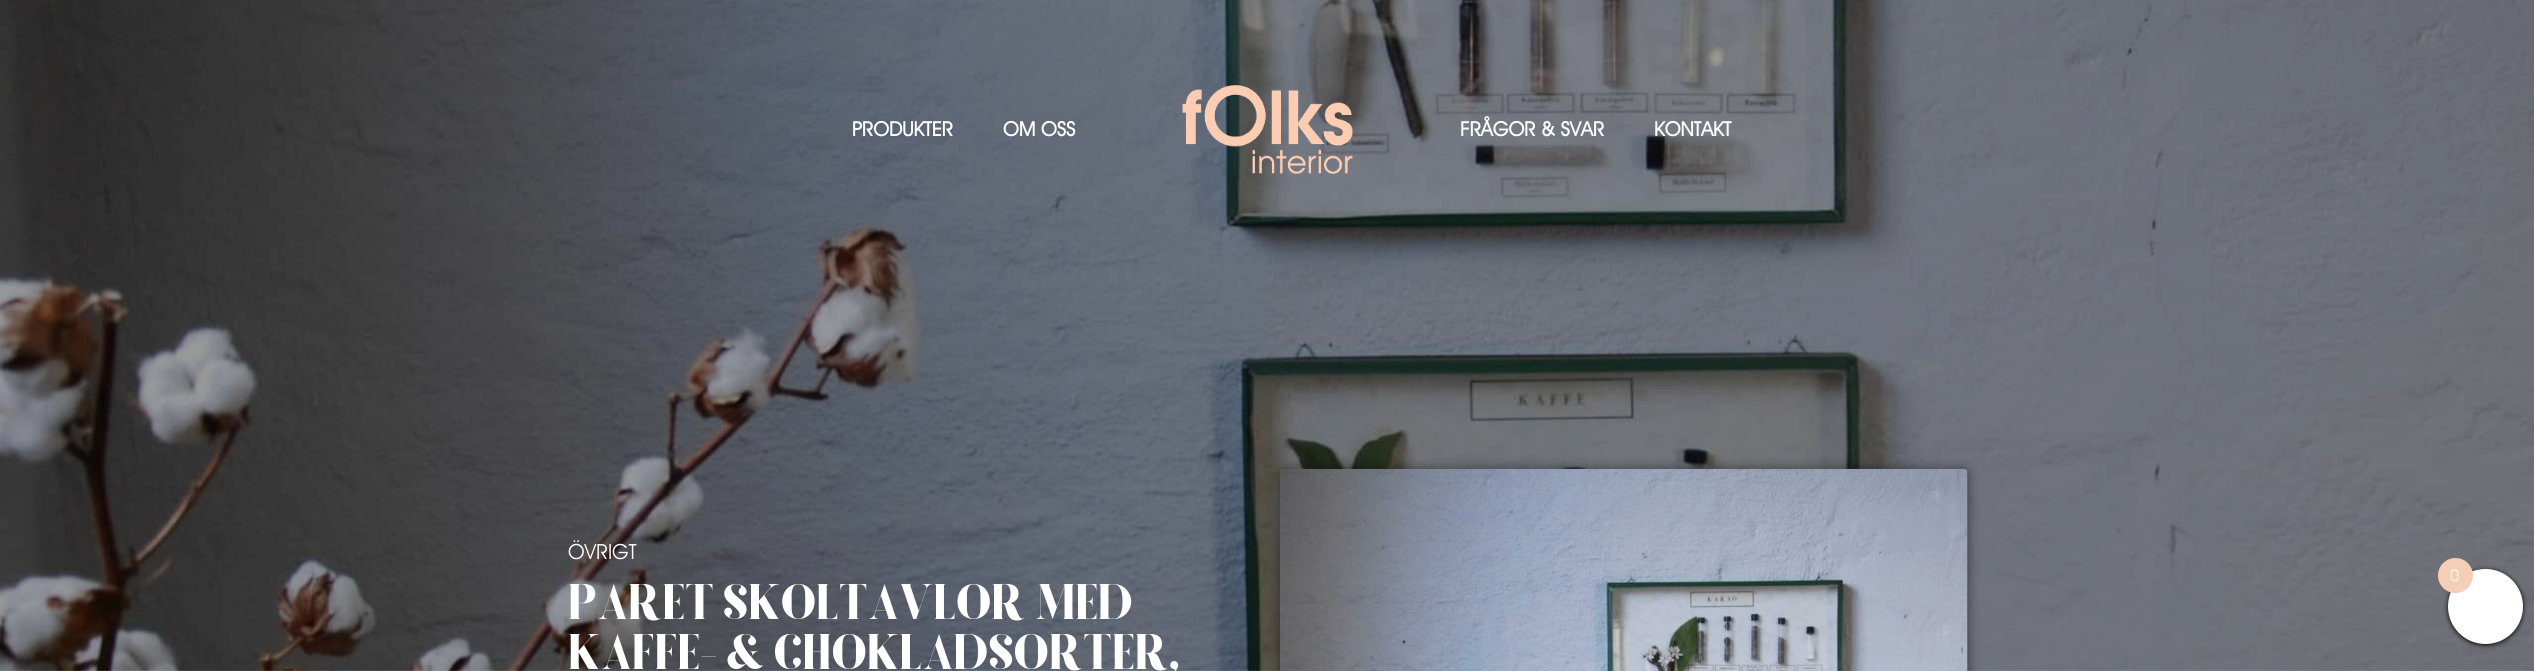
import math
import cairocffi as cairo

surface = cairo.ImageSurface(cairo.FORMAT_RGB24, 2534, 671)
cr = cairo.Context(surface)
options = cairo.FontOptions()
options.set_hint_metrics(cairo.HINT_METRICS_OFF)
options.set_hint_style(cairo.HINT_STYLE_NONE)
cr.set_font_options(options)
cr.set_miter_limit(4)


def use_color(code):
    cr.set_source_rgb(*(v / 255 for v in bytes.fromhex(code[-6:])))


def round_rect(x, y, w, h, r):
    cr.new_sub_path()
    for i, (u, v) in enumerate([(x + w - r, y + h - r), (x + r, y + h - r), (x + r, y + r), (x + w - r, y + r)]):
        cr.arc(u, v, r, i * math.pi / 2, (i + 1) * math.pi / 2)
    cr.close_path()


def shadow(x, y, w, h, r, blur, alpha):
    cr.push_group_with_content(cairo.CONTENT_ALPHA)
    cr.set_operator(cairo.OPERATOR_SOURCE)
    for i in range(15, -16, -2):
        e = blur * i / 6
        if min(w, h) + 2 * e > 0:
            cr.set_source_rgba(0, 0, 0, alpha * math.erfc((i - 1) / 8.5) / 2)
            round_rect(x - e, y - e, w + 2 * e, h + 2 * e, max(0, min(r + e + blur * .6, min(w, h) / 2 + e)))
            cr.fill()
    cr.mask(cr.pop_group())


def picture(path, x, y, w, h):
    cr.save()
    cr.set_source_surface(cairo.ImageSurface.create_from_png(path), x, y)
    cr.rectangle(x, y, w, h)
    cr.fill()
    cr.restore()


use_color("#ffffff")
cr.paint()
picture("img2.png", 0, 0, 2534, 671)
cr.select_font_face("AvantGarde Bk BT", cairo.FONT_SLANT_NORMAL, cairo.FONT_WEIGHT_BOLD)
cr.set_font_size(20)
use_color("#ffffff")
cr.move_to(852, 136)
cr.show_text("PRODUKTER")
cr.move_to(1003, 136)
cr.show_text("OM OSS")
picture("img1.png", 1182, 85, 171, 89)
cr.move_to(1460, 136)
cr.show_text("FRÅGOR & SVAR")
cr.move_to(1654, 136)
cr.show_text("KONTAKT")
cr.select_font_face("AvantGarde Bk BT")
cr.set_font_size(21)
cr.move_to(568, 559)
cr.show_text("ÖVRIGT")
cr.select_font_face("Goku")
cr.set_font_size(50)
cr.move_to(568, 619)
cr.show_text("PARET SKOLTAVLOR MED")
cr.move_to(568, 669)
cr.show_text("KAFFE- & CHOKLADSORTER,")
use_color("#000000")
shadow(1280, 469, 688, 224, 4, 6, 0.5)
picture("img3.png", 1280, 468, 688, 203)
shadow(2448, 570, 75, 75, 37.5, 2.5, 1)
use_color("#ffffff")
cr.arc(2485.5, 606.5, 37.5, 0, 2 * math.pi)
cr.fill()
use_color("#f4ceb6")
cr.arc(2455.5, 575.5, 17.5, 0, 2 * math.pi)
cr.fill()
cr.select_font_face("AvantGarde Bk BT")
cr.set_font_size(16)
use_color("#ffffff")
cr.move_to(2450, 581)
cr.show_text("0")
surface.write_to_png("result.png")
